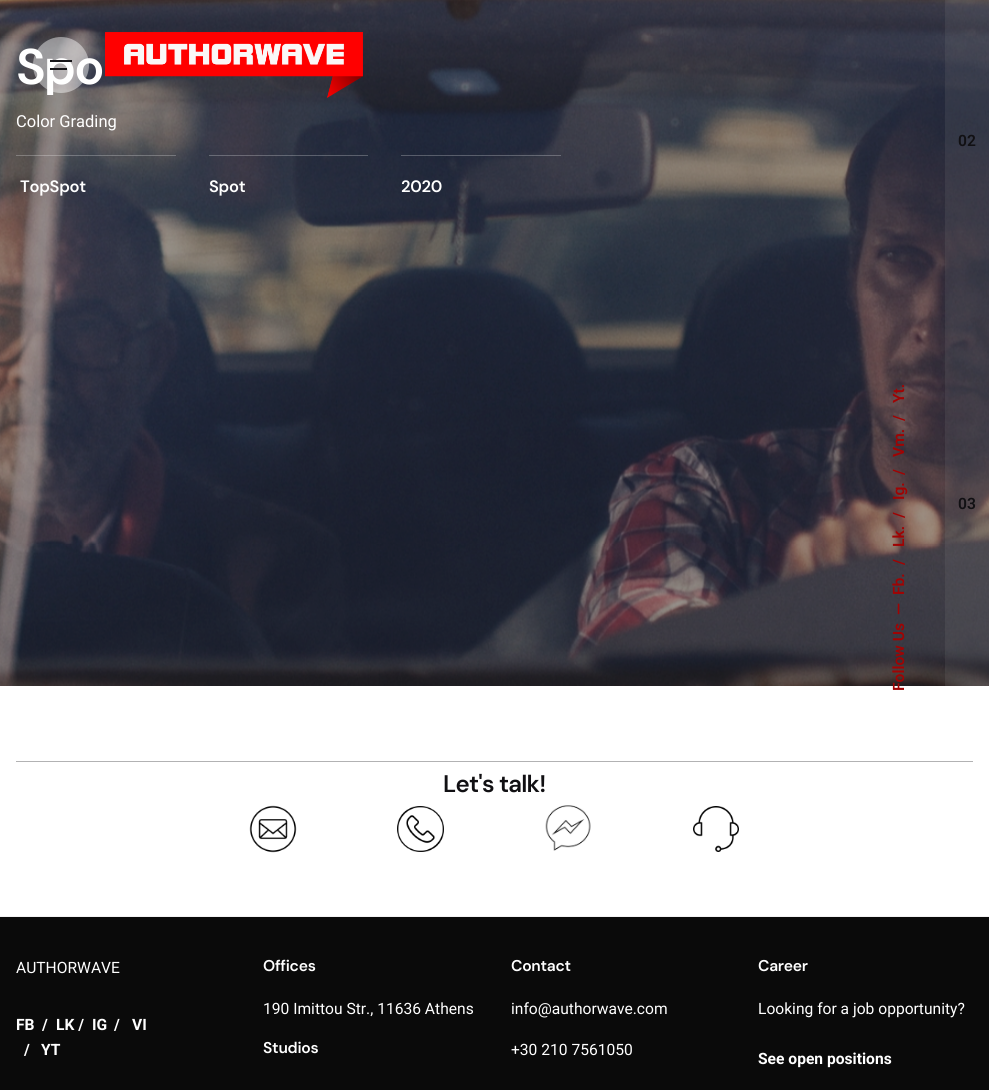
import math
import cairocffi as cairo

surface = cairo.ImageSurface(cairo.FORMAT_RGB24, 989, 1090)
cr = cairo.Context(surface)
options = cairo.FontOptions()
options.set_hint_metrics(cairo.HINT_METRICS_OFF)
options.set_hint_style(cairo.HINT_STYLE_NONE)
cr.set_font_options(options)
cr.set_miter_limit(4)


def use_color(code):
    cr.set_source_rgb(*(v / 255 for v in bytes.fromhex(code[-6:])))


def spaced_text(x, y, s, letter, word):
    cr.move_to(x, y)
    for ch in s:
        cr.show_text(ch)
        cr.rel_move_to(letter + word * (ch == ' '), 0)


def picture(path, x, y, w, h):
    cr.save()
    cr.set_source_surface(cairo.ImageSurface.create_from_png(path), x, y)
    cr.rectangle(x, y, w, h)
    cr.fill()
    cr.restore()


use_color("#ffffff")
cr.paint()
picture("img2.png", 0, 0, 989, 686)
cr.select_font_face("DM Sans SemiBold")
cr.set_font_size(50)
use_color("#ffffff")
spaced_text(16, 84, "Spo", -2, 0)
cr.set_source_rgba(1, 1, 1, 0.44)
cr.new_path()
cr.arc(61, 65, 28, 0, 2 * math.pi)
cr.fill()
use_color("#161518")
cr.rectangle(50, 60, 22, 2)
cr.fill()
cr.rectangle(50, 68, 17, 2)
cr.fill()
picture("img1.png", 105, 32, 258, 66)
cr.select_font_face("Roboto")
cr.set_font_size(16.5)
use_color("#ffffff")
cr.move_to(16, 127)
cr.show_text("Color Grading")
cr.set_source_rgba(1, 1, 1, 0.25)
cr.rectangle(16, 155, 160, 1)
cr.fill()
cr.select_font_face("DM Sans SemiBold")
use_color("#ffffff")
spaced_text(20, 192, "TopSpot", -0.25, 0)
cr.set_source_rgba(1, 1, 1, 0.25)
cr.rectangle(209, 155, 159, 1)
cr.fill()
use_color("#ffffff")
spaced_text(209, 192, "Spot", -0.25, 0)
cr.set_source_rgba(1, 1, 1, 0.25)
cr.rectangle(401, 155, 160, 1)
cr.fill()
use_color("#ffffff")
spaced_text(401, 192, "2020", -0.25, 0)
cr.set_source_rgba(0.533, 0.533, 0.537, 0.16)
cr.rectangle(945, 0, 44, 686)
cr.fill()
cr.select_font_face("Roboto SemiBold")
cr.set_font_size(15.6)
use_color("#111013")
cr.move_to(958, 146)
cr.show_text("02")
cr.move_to(958, 509)
cr.show_text("03")
use_color("#f3f2f3")
cr.rectangle(0, 916, 989, 1)
cr.fill()
use_color("#b2b2b3")
cr.rectangle(16, 761, 957, 1)
cr.fill()
cr.select_font_face("DM Sans SemiBold")
cr.set_font_size(24)
use_color("#111013")
spaced_text(443, 792, "Let's talk!", -0.75, 0)
picture("img3.png", 249, 805, 48, 48)
picture("img4.png", 397, 806, 47, 46)
picture("img5.png", 545, 805, 46, 46)
picture("img6.png", 693, 806, 46, 46)
cr.select_font_face("Roboto SemiBold")
cr.set_font_size(15.6)
use_color("#a00303")
cr.save()
cr.translate(904, 403)
cr.rotate(-90 * math.pi / 180)
cr.move_to(0, 0)
cr.show_text("Yt.")
cr.restore()
cr.save()
cr.translate(904, 421)
cr.rotate(-90 * math.pi / 180)
cr.move_to(0, 0)
cr.show_text("/")
cr.restore()
cr.save()
cr.translate(904, 457)
cr.rotate(-90 * math.pi / 180)
cr.move_to(0, 0)
cr.show_text("Vm.")
cr.restore()
cr.save()
cr.translate(904, 475)
cr.rotate(-90 * math.pi / 180)
cr.move_to(0, 0)
cr.show_text("/")
cr.restore()
cr.save()
cr.translate(904, 500)
cr.rotate(-90 * math.pi / 180)
cr.move_to(0, 0)
cr.show_text("Ig.")
cr.restore()
cr.save()
cr.translate(904, 518)
cr.rotate(-90 * math.pi / 180)
cr.move_to(0, 0)
cr.show_text("/")
cr.restore()
cr.save()
cr.translate(904, 547)
cr.rotate(-90 * math.pi / 180)
cr.move_to(0, 0)
cr.show_text("Lk.")
cr.restore()
cr.save()
cr.translate(904, 565)
cr.rotate(-90 * math.pi / 180)
cr.move_to(0, 0)
cr.show_text("/")
cr.restore()
cr.save()
cr.translate(904, 595)
cr.rotate(-90 * math.pi / 180)
cr.move_to(0, 0)
cr.show_text("Fb.")
cr.restore()
cr.save()
cr.translate(904, 615)
cr.rotate(-90 * math.pi / 180)
cr.move_to(0, 0)
cr.show_text("—")
cr.restore()
cr.save()
cr.translate(904, 691)
cr.rotate(-90 * math.pi / 180)
cr.move_to(0, 0)
cr.show_text("Follow Us")
cr.restore()
use_color("#0a0a0a")
cr.rectangle(0, 917, 989, 173)
cr.fill()
cr.select_font_face("Roboto")
use_color("#ffffff")
cr.move_to(16, 973)
cr.show_text("AUTHORWAVE")
cr.select_font_face("Roboto", cairo.FONT_SLANT_NORMAL, cairo.FONT_WEIGHT_BOLD)
cr.move_to(16, 1030)
cr.show_text("FB")
cr.move_to(42, 1030)
cr.show_text("/")
cr.move_to(56, 1030)
cr.show_text("LK /")
cr.move_to(92, 1030)
cr.show_text("IG")
cr.move_to(114, 1030)
cr.show_text("/")
cr.move_to(132, 1030)
cr.show_text("VI")
cr.move_to(24, 1055)
cr.show_text("/")
cr.move_to(41, 1055)
cr.show_text("YT")
cr.select_font_face("DM Sans SemiBold")
spaced_text(263, 971, "Offices", -0.25, 0)
cr.select_font_face("Roboto")
cr.move_to(263, 1014)
cr.show_text("190 Imittou Str., 11636 Athens")
cr.select_font_face("DM Sans SemiBold")
spaced_text(263, 1053, "Studios", -0.25, 0)
spaced_text(511, 971, "Contact", -0.25, 0)
cr.select_font_face("Roboto")
cr.move_to(511, 1014)
cr.show_text("info@authorwave.com")
cr.move_to(511, 1055)
cr.show_text("+30 210 7561050")
cr.select_font_face("DM Sans SemiBold")
spaced_text(758, 971, "Career", -0.25, 0)
cr.select_font_face("Roboto")
cr.move_to(758, 1014)
cr.show_text("Looking for a job opportunity?")
cr.select_font_face("Roboto", cairo.FONT_SLANT_NORMAL, cairo.FONT_WEIGHT_BOLD)
cr.move_to(758, 1064)
cr.show_text("See open positions")
surface.write_to_png("result.png")
